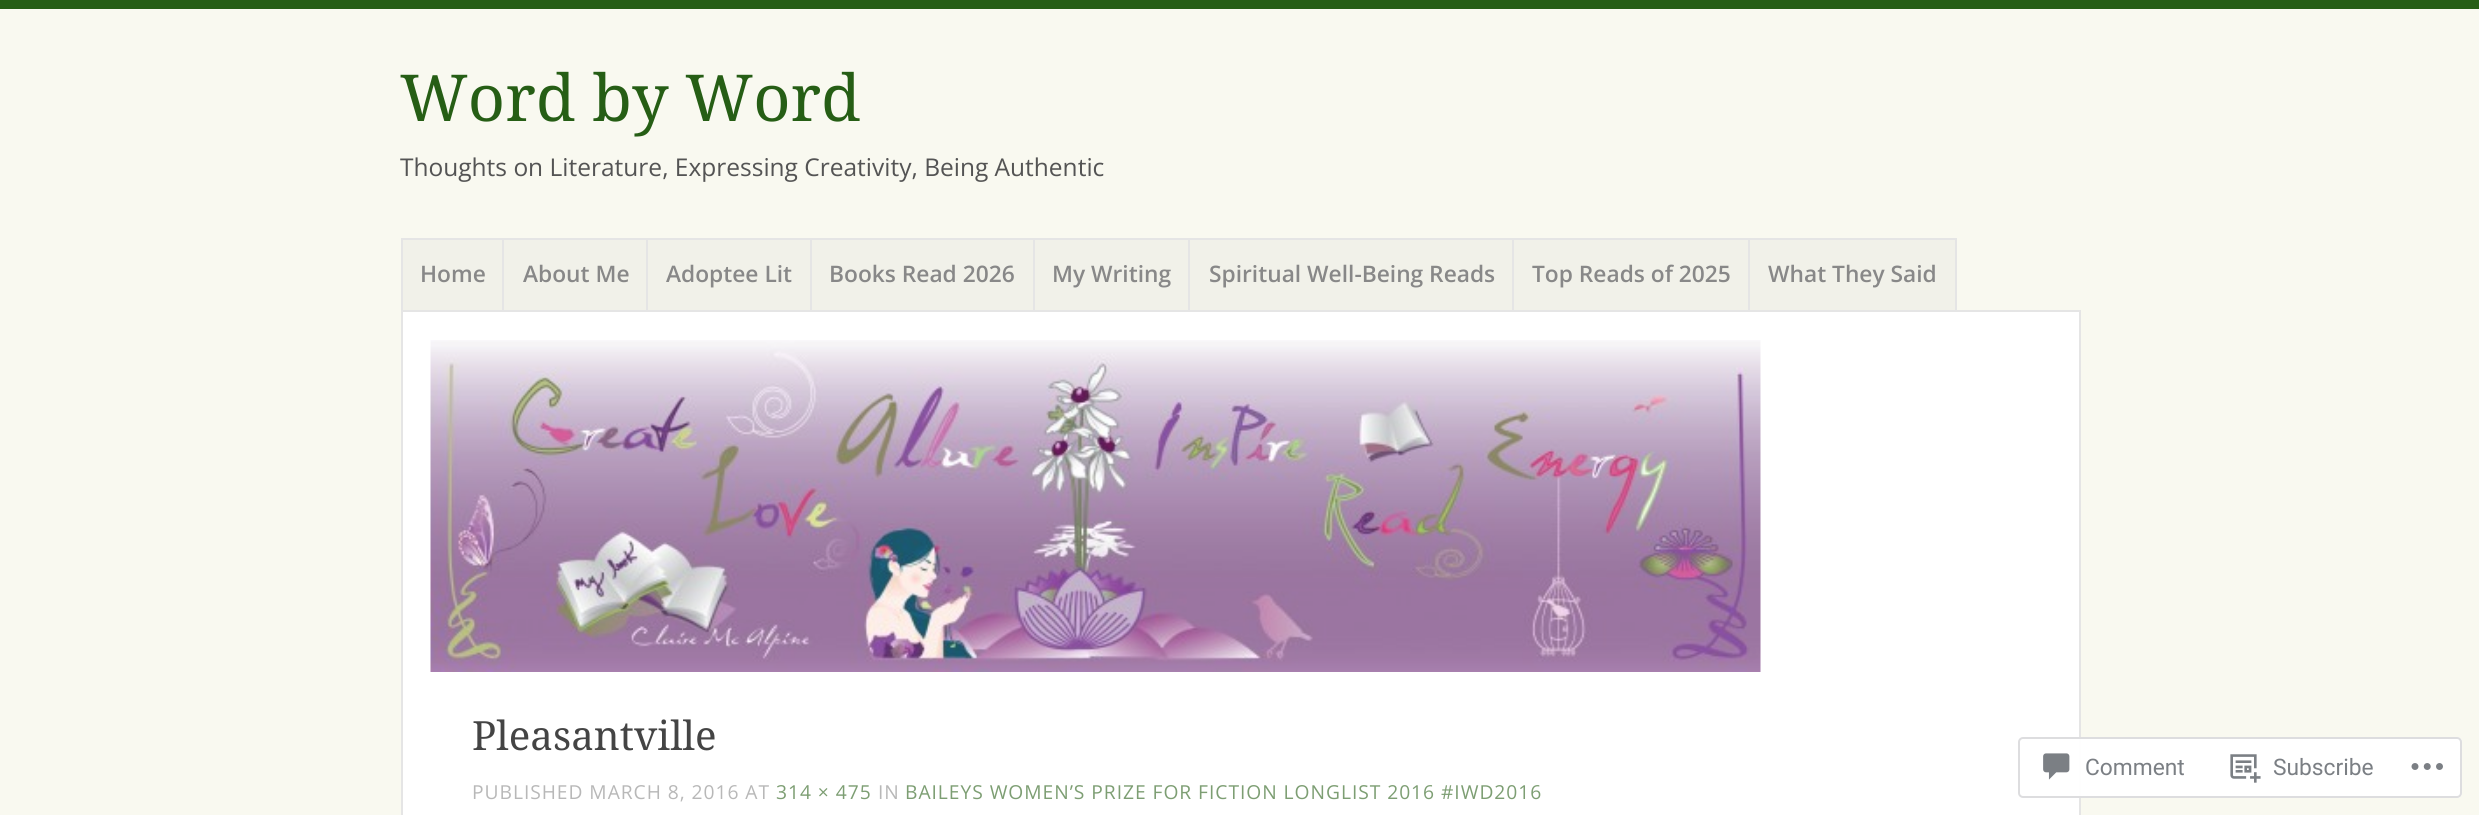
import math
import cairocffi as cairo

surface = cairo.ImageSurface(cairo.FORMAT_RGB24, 2479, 815)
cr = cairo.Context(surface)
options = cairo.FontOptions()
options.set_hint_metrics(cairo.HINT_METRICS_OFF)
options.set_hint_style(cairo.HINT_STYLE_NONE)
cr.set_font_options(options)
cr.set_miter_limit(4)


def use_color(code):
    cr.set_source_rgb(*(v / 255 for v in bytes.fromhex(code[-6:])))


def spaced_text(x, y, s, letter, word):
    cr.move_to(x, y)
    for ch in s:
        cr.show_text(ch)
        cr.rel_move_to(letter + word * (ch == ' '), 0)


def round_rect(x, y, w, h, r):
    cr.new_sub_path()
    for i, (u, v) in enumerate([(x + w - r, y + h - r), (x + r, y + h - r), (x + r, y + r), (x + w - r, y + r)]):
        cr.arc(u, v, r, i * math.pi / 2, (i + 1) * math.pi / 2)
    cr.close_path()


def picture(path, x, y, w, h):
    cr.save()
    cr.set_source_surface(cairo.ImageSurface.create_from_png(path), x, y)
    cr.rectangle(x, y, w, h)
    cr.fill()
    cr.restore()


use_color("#f9f9f0")
cr.paint()
use_color("#265e15")
cr.rectangle(0, 0, 2479, 9)
cr.fill()
cr.select_font_face("Droid Serif")
cr.set_font_size(64.75)
cr.move_to(400, 121)
cr.show_text("Word by Word")
cr.select_font_face("Open Sans")
cr.set_font_size(24.5)
use_color("#545454")
cr.move_to(400, 176)
cr.show_text("Thoughts on Literature, Expressing Creativity, Being Authentic")
use_color("#f1f1e9")
cr.rectangle(403, 240, 99, 70)
cr.fill()
use_color("#ffffff")
cr.rectangle(402, 311, 1678, 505)
cr.fill_preserve()
use_color("#e5e5e5")
cr.stroke()
cr.rectangle(402, 239, 103, 72)
cr.stroke()
cr.select_font_face("Open Sans SemiBold")
cr.set_font_size(22.75)
use_color("#888888")
cr.move_to(420, 282)
cr.show_text("Home")
use_color("#f1f1e9")
cr.rectangle(504, 240, 142, 70)
cr.fill()
cr.rectangle(503, 239, 145, 72)
use_color("#e5e5e5")
cr.stroke()
use_color("#888888")
cr.move_to(523, 282)
cr.show_text("About Me")
use_color("#f1f1e9")
cr.rectangle(647, 239, 164, 72)
cr.fill_preserve()
use_color("#e5e5e5")
cr.stroke()
use_color("#888888")
cr.move_to(666, 282)
cr.show_text("Adoptee Lit")
use_color("#f1f1e9")
cr.rectangle(812, 240, 221, 70)
cr.fill()
cr.rectangle(811, 239, 224, 72)
use_color("#e5e5e5")
cr.stroke()
use_color("#888888")
cr.move_to(829, 282)
cr.show_text("Books Read 2026")
use_color("#f1f1e9")
cr.rectangle(1035, 240, 153, 70)
cr.fill()
cr.rectangle(1034, 239, 157, 72)
use_color("#e5e5e5")
cr.stroke()
use_color("#888888")
cr.move_to(1052, 282)
cr.show_text("My Writing")
use_color("#f1f1e9")
cr.rectangle(1190, 240, 322, 70)
cr.fill()
cr.rectangle(1189, 239, 326, 72)
use_color("#e5e5e5")
cr.stroke()
use_color("#888888")
cr.move_to(1209, 282)
cr.show_text("Spiritual Well-Being Reads")
use_color("#f1f1e9")
cr.rectangle(1513, 239, 236, 72)
cr.fill_preserve()
use_color("#e5e5e5")
cr.stroke()
use_color("#888888")
cr.move_to(1532, 282)
cr.show_text("Top Reads of 2025")
use_color("#f1f1e9")
cr.rectangle(1749, 239, 207, 72)
cr.fill_preserve()
use_color("#e5e5e5")
cr.stroke()
use_color("#888888")
cr.move_to(1768, 282)
cr.show_text("What They Said")
picture("img1.png", 430, 340, 1331, 332)
cr.select_font_face("Droid Serif")
cr.set_font_size(40.25)
use_color("#444444")
cr.move_to(472, 750)
cr.show_text("Pleasantville")
cr.select_font_face("Open Sans")
cr.set_font_size(19.25)
use_color("#b8b8b8")
spaced_text(472, 799, "PUBLISHED MARCH 8, 2016 AT", 0.95, 0)
use_color("#7d9e73")
spaced_text(776, 799, "314 × 475", 0.95, 0)
use_color("#b8b8b8")
spaced_text(878, 799, "IN", 0.95, 0)
use_color("#7d9e73")
spaced_text(905, 799, "BAILEYS WOMEN’S PRIZE FOR FICTION LONGLIST 2016 #IWD2016", 0.95, 0)
cr.set_source_rgba(1, 1, 1, 0.98)
round_rect(2018, 737, 444, 61, 5)
cr.fill()
round_rect(2019, 738, 442, 59, 4)
cr.set_source_rgba(0.863, 0.863, 0.871, 0.98)
cr.stroke()
picture("img2.png", 2043, 753, 27, 27)
cr.select_font_face("Roboto")
cr.set_font_size(22.75)
use_color("#7b7f84")
cr.move_to(2085, 775)
cr.show_text("Comment")
picture("img3.png", 2230, 754, 31, 29)
cr.move_to(2273, 775)
cr.show_text("Subscribe")
picture("img4.png", 2411, 763, 32, 7)
surface.write_to_png("result.png")
